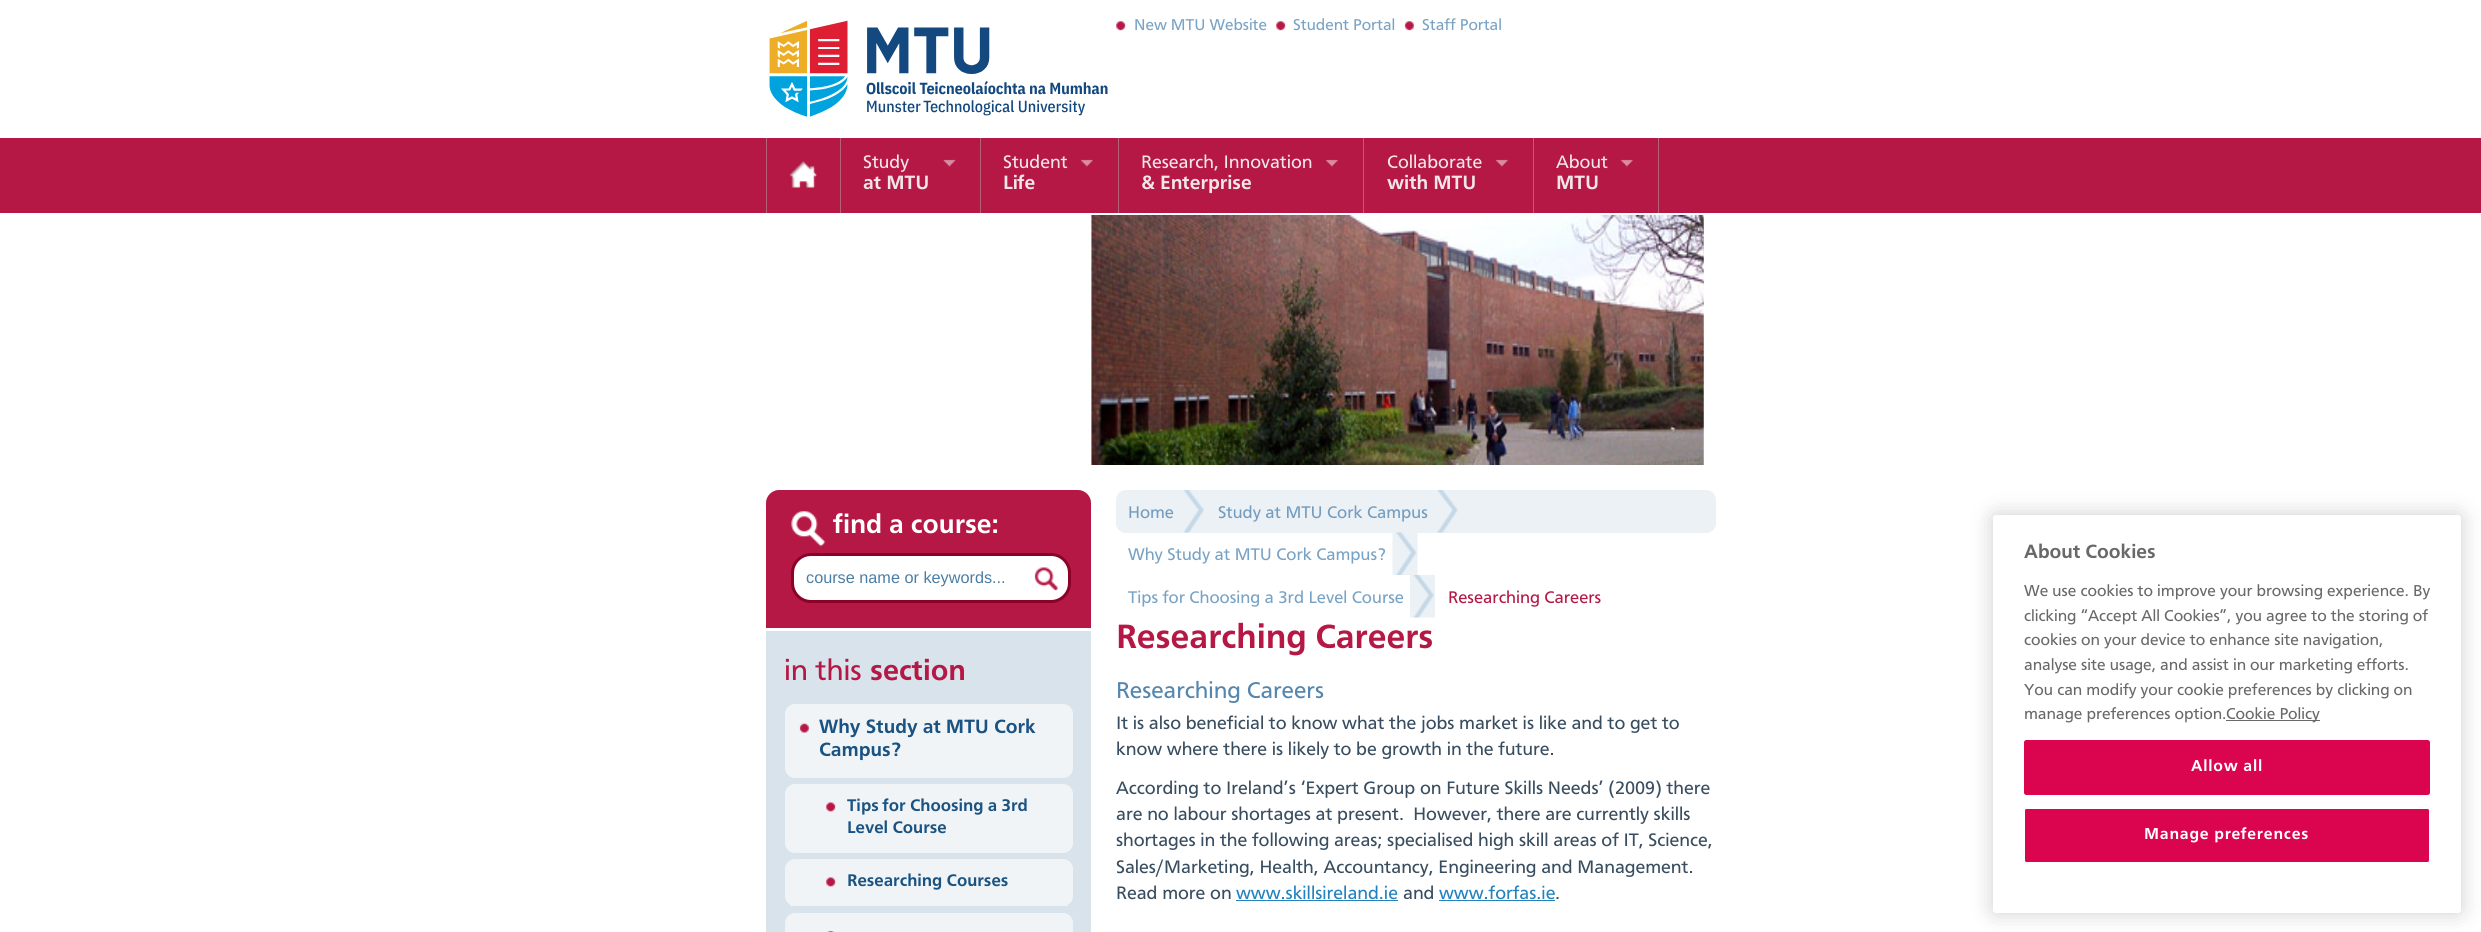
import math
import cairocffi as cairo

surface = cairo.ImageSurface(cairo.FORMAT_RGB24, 2481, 932)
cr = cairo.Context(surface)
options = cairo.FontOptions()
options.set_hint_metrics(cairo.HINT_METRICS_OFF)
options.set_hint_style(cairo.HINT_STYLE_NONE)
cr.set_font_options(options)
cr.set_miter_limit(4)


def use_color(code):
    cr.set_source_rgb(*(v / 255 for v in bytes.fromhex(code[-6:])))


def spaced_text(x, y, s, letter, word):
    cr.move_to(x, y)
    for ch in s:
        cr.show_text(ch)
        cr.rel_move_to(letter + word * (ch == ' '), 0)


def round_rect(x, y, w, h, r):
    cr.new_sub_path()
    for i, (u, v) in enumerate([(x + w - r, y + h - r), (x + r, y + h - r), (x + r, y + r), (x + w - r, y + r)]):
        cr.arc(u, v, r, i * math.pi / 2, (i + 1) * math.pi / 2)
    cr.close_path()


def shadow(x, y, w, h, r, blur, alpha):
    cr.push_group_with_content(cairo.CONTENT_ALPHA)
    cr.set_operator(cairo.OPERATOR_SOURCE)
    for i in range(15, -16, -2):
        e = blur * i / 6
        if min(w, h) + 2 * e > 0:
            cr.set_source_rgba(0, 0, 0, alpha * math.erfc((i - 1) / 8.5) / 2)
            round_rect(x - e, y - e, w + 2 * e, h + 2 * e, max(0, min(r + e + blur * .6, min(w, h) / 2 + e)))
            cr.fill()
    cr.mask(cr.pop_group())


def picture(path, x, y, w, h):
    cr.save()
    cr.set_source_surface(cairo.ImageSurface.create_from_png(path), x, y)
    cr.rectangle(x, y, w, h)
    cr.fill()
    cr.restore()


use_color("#ffffff")
cr.paint()
picture("img1.png", 769, 20, 339, 97)
picture("img2.png", 1116, 21, 10, 10)
cr.select_font_face("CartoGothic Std")
cr.set_font_size(16.25)
use_color("#79a3c5")
cr.move_to(1134, 30)
cr.show_text("New MTU Website")
picture("img3.png", 1276, 21, 10, 10)
cr.move_to(1293, 30)
cr.show_text("Student Portal")
picture("img4.png", 1404, 21, 10, 10)
cr.move_to(1422, 30)
cr.show_text("Staff Portal")
use_color("#b51845")
cr.rectangle(0, 138, 2481, 75)
cr.fill()
use_color("#b46179")
cr.rectangle(840, 138, 1, 75)
cr.fill()
cr.rectangle(766, 138, 1, 75)
cr.fill()
picture("img5.png", 789, 161, 28, 27)
cr.rectangle(980, 138, 1, 75)
cr.fill()
picture("img6.png", 943, 159, 13, 8)
cr.set_font_size(18.75)
use_color("#f2e6e9")
cr.move_to(863, 168)
cr.show_text("Study")
cr.select_font_face("CartoGothic Std", cairo.FONT_SLANT_NORMAL, cairo.FONT_WEIGHT_BOLD)
cr.set_font_size(20)
cr.move_to(863, 189)
cr.show_text("at MTU")
use_color("#b46179")
cr.rectangle(1118, 138, 1, 75)
cr.fill()
picture("img7.png", 1081, 159, 12, 8)
cr.select_font_face("CartoGothic Std")
cr.set_font_size(18.75)
use_color("#f2e6e9")
cr.move_to(1003, 168)
cr.show_text("Student")
cr.select_font_face("CartoGothic Std", cairo.FONT_SLANT_NORMAL, cairo.FONT_WEIGHT_BOLD)
cr.set_font_size(20)
cr.move_to(1003, 189)
cr.show_text("Life")
use_color("#b46179")
cr.rectangle(1363, 138, 1, 75)
cr.fill()
picture("img7.png", 1326, 159, 12, 8)
cr.select_font_face("CartoGothic Std")
cr.set_font_size(18.75)
use_color("#f2e6e9")
cr.move_to(1141, 168)
cr.show_text("Research, Innovation")
cr.select_font_face("CartoGothic Std", cairo.FONT_SLANT_NORMAL, cairo.FONT_WEIGHT_BOLD)
cr.set_font_size(20)
cr.move_to(1141, 189)
cr.show_text("& Enterprise")
use_color("#b46179")
cr.rectangle(1533, 138, 1, 75)
cr.fill()
picture("img7.png", 1496, 159, 12, 8)
cr.select_font_face("CartoGothic Std")
cr.set_font_size(18.75)
use_color("#f2e6e9")
cr.move_to(1387, 168)
cr.show_text("Collaborate")
cr.select_font_face("CartoGothic Std", cairo.FONT_SLANT_NORMAL, cairo.FONT_WEIGHT_BOLD)
cr.set_font_size(20)
cr.move_to(1387, 189)
cr.show_text("with MTU")
use_color("#b46179")
cr.rectangle(1658, 138, 1, 75)
cr.fill()
picture("img7.png", 1621, 159, 12, 8)
cr.select_font_face("CartoGothic Std")
cr.set_font_size(18.75)
use_color("#f2e6e9")
cr.move_to(1556, 168)
cr.show_text("About")
cr.select_font_face("CartoGothic Std", cairo.FONT_SLANT_NORMAL, cairo.FONT_WEIGHT_BOLD)
cr.set_font_size(20)
cr.move_to(1556, 189)
cr.show_text("MTU")
picture("img8.png", 1091, 215, 613, 250)
use_color("#d8e3eb")
round_rect(766, 490, 325, 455, 13)
cr.fill()
use_color("#b51845")
cr.new_path()
cr.move_to(779, 490)
cr.line_to(1078, 490)
cr.curve_to(1085, 490, 1091, 496, 1091, 503)
cr.line_to(1091, 630)
cr.line_to(766, 630)
cr.line_to(766, 503)
cr.curve_to(766, 496, 772, 490, 779, 490)
cr.close_path()
cr.fill()
use_color("#ffffff")
cr.rectangle(766, 628, 325, 3)
cr.fill()
picture("img9.png", 791, 511, 35, 36)
cr.set_font_size(27.5)
cr.move_to(834, 533)
cr.show_text("find a course:")
round_rect(792.5, 554.5, 277, 47, 18.5)
cr.fill_preserve()
use_color("#8b0229")
cr.set_line_width(3)
cr.stroke()
cr.select_font_face("Liberation Sans")
cr.set_font_size(16.25)
use_color("#4b7ea4")
cr.move_to(806, 583)
cr.show_text("course name or keywords...")
picture("img10.png", 1034, 567, 24, 24)
cr.select_font_face("CartoGothic Std")
cr.set_font_size(30)
use_color("#b51845")
cr.move_to(784, 680)
cr.show_text("in this")
cr.select_font_face("CartoGothic Std", cairo.FONT_SLANT_NORMAL, cairo.FONT_WEIGHT_BOLD)
cr.move_to(870, 680)
cr.show_text("section")
use_color("#f0f4f7")
round_rect(785, 704, 288, 74, 10)
cr.fill()
picture("img11.png", 799, 723, 10, 10)
cr.rectangle(790, 776, 278, 1)
cr.fill()
cr.set_font_size(20)
use_color("#1a5382")
cr.move_to(819, 733)
cr.show_text("Why Study at MTU Cork")
cr.move_to(819, 756)
cr.show_text("Campus?")
use_color("#f0f4f7")
round_rect(785, 784, 288, 69, 10)
cr.fill()
picture("img12.png", 826, 802, 10, 10)
cr.rectangle(790, 851, 278, 1)
cr.fill()
cr.set_font_size(17.5)
use_color("#1a5382")
cr.move_to(847, 811)
cr.show_text("Tips for Choosing a 3rd")
cr.move_to(847, 833)
cr.show_text("Level Course")
use_color("#f0f4f7")
round_rect(785, 859, 288, 47, 10)
cr.fill()
picture("img12.png", 826, 877, 10, 10)
cr.rectangle(790, 905, 278, 1)
cr.fill()
use_color("#1a5382")
cr.move_to(847, 886)
cr.show_text("Researching Courses")
use_color("#f0f4f7")
round_rect(785, 913, 288, 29, 10)
cr.fill()
picture("img13.png", 827, 931, 7, 1)
use_color("#ebf1f5")
round_rect(1116, 490, 600, 43, 10)
cr.fill()
picture("img14.png", 1183, 490, 21, 43)
cr.select_font_face("CartoGothic Std")
use_color("#739cbe")
cr.move_to(1128, 518)
cr.show_text("Home")
picture("img15.png", 1437, 490, 21, 43)
cr.move_to(1218, 518)
cr.show_text("Study at MTU Cork Campus")
picture("img16.png", 1392, 532, 26, 43)
use_color("#79a3c5")
cr.move_to(1128, 560)
cr.show_text("Why Study at MTU Cork Campus?")
picture("img17.png", 1410, 575, 25, 43)
cr.move_to(1128, 603)
cr.show_text("Tips for Choosing a 3rd Level Course")
use_color("#b51845")
cr.move_to(1448, 603)
cr.show_text("Researching Careers")
cr.select_font_face("CartoGothic Std", cairo.FONT_SLANT_NORMAL, cairo.FONT_WEIGHT_BOLD)
cr.set_font_size(35)
cr.move_to(1116, 648)
cr.show_text("Researching Careers")
cr.select_font_face("CartoGothic Std")
cr.set_font_size(23.75)
use_color("#5486ae")
cr.move_to(1116, 698)
cr.show_text("Researching Careers")
cr.set_font_size(18.75)
use_color("#384d5f")
cr.move_to(1116, 729)
cr.show_text("It is also beneficial to know what the jobs market is like and to get to")
cr.move_to(1116, 755)
cr.show_text("know where there is likely to be growth in the future.")
cr.move_to(1116, 794)
cr.show_text("According to Ireland’s ‘Expert Group on Future Skills Needs’ (2009) there")
cr.move_to(1116, 820)
cr.show_text("are no labour shortages at present.  However, there are currently skills")
cr.move_to(1116, 846)
cr.show_text("shortages in the following areas; specialised high skill areas of IT, Science,")
cr.move_to(1116, 873)
cr.show_text("Sales/Marketing, Health, Accountancy, Engineering and Management.")
cr.move_to(1116, 899)
cr.show_text("Read more on")
use_color("#2382be")
cr.move_to(1236, 899)
cr.show_text("www.skillsireland.ie")
cr.rectangle(1236, 900, 162, 1)
cr.fill()
use_color("#384d5f")
cr.move_to(1403, 899)
cr.show_text("and")
use_color("#2382be")
cr.move_to(1439, 899)
cr.show_text("www.forfas.ie")
cr.rectangle(1439, 900, 116, 1)
cr.fill()
use_color("#384d5f")
cr.move_to(1555, 899)
cr.show_text(".")
use_color("#000000")
shadow(1993, 515, 468, 398, 3, 11, 0.2)
use_color("#ffffff")
round_rect(1993, 515, 468, 398, 3)
cr.fill()
cr.select_font_face("CartoGothic Std", cairo.FONT_SLANT_NORMAL, cairo.FONT_WEIGHT_BOLD)
cr.set_font_size(20)
use_color("#696969")
cr.move_to(2024, 558)
cr.show_text("About Cookies")
cr.select_font_face("CartoGothic Std")
cr.set_font_size(16.4)
cr.move_to(2024, 596)
cr.show_text("We use cookies to improve your browsing experience. By")
cr.move_to(2024, 621)
cr.show_text("clicking “Accept All Cookies”, you agree to the storing of")
cr.move_to(2024, 645)
cr.show_text("cookies on your device to enhance site navigation,")
cr.move_to(2024, 670)
cr.show_text("analyse site usage, and assist in our marketing efforts.")
cr.move_to(2024, 695)
cr.show_text("You can modify your cookie preferences by clicking on")
cr.move_to(2024, 719)
cr.show_text("manage preferences option.")
cr.rectangle(2226, 720, 94, 1)
cr.fill()
cr.move_to(2226, 719)
cr.show_text("Cookie Policy")
use_color("#da054e")
round_rect(2024.5, 740.5, 405, 54, 2)
cr.fill_preserve()
cr.set_line_width(1)
cr.stroke()
cr.select_font_face("CartoGothic Std", cairo.FONT_SLANT_NORMAL, cairo.FONT_WEIGHT_BOLD)
use_color("#ffffff")
spaced_text(2191, 771, "Allow all", 0.8, 0)
use_color("#da054e")
round_rect(2024.5, 808.5, 405, 54, 2)
cr.fill_preserve()
use_color("#ffffff")
cr.stroke()
spaced_text(2144, 839, "Manage preferences", 0.8, 0)
surface.write_to_png("result.png")
